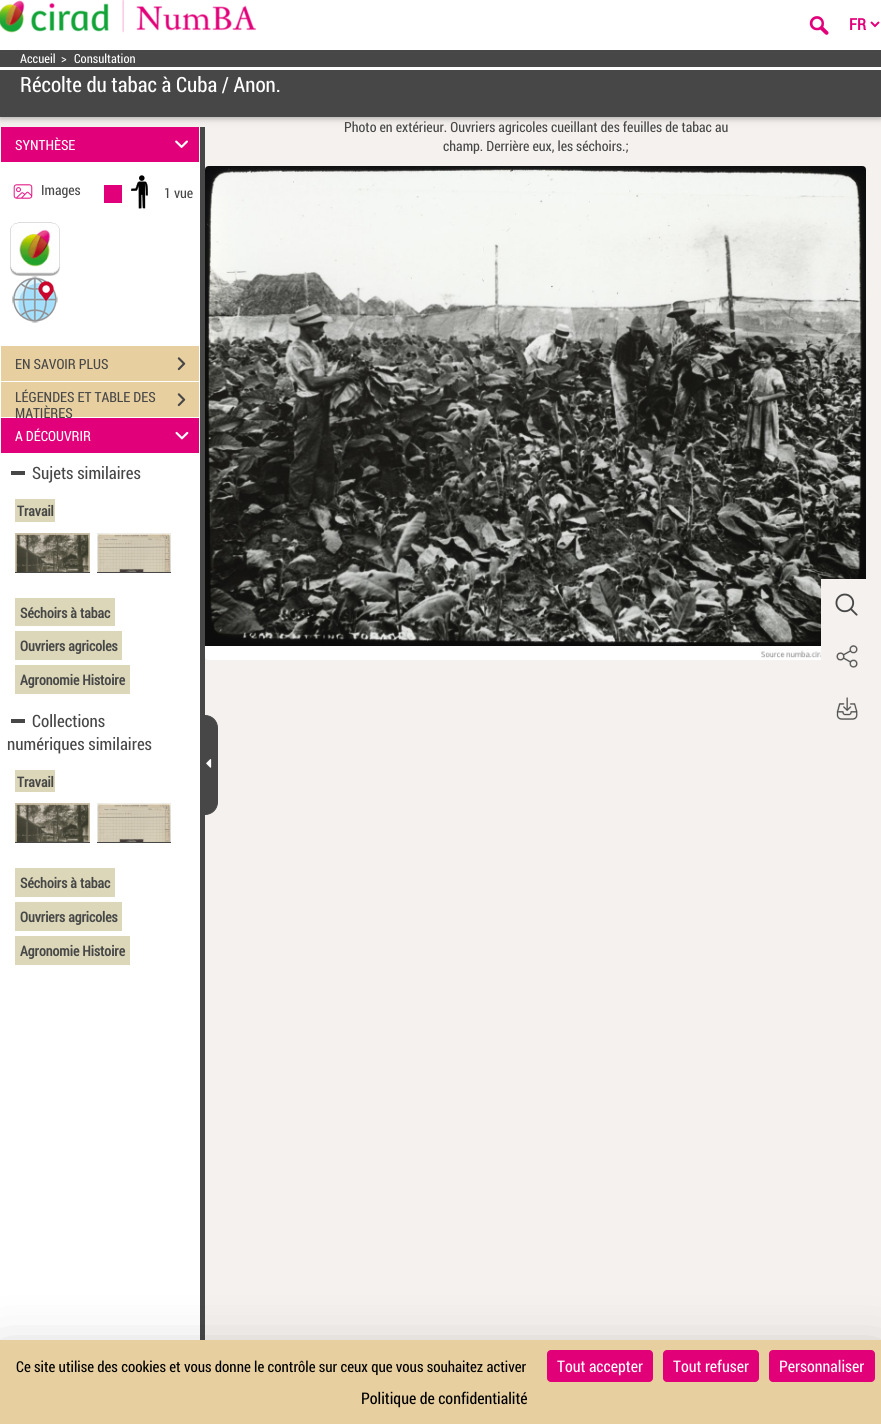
import math
import cairocffi as cairo

surface = cairo.ImageSurface(cairo.FORMAT_RGB24, 881, 1424)
cr = cairo.Context(surface)
options = cairo.FontOptions()
options.set_hint_metrics(cairo.HINT_METRICS_OFF)
options.set_hint_style(cairo.HINT_STYLE_NONE)
cr.set_font_options(options)
cr.set_miter_limit(4)


def use_color(code):
    cr.set_source_rgb(*(v / 255 for v in bytes.fromhex(code[-6:])))


def round_rect(x, y, w, h, r):
    cr.new_sub_path()
    for i, (u, v) in enumerate([(x + w - r, y + h - r), (x + r, y + h - r), (x + r, y + r), (x + w - r, y + r)]):
        cr.arc(u, v, r, i * math.pi / 2, (i + 1) * math.pi / 2)
    cr.close_path()


def shadow(x, y, w, h, r, blur, alpha):
    cr.push_group_with_content(cairo.CONTENT_ALPHA)
    cr.set_operator(cairo.OPERATOR_SOURCE)
    for i in range(15, -16, -2):
        e = blur * i / 6
        if min(w, h) + 2 * e > 0:
            cr.set_source_rgba(0, 0, 0, alpha * math.erfc((i - 1) / 8.5) / 2)
            round_rect(x - e, y - e, w + 2 * e, h + 2 * e, max(0, min(r + e + blur * .6, min(w, h) / 2 + e)))
            cr.fill()
    cr.mask(cr.pop_group())


def picture(path, x, y, w, h):
    cr.save()
    cr.set_source_surface(cairo.ImageSurface.create_from_png(path), x, y)
    cr.rectangle(x, y, w, h)
    cr.fill()
    cr.restore()


use_color("#f5f1ee")
cr.paint()
use_color("#000000")
shadow(0, 52, 881, 67, 0, 5, 0.12)
shadow(0, 52, 881, 67, 0, 2, 0.16)
use_color("#ffffff")
cr.rectangle(0, 0, 881, 50)
cr.fill()
picture("img1.png", 0, 0, 256, 33)
picture("img2.png", 809, 16, 20, 19)
cr.new_path()
cr.move_to(871, 22)
cr.line_to(875, 26)
cr.line_to(879, 22)
use_color("#e2007a")
cr.stroke()
cr.select_font_face("Roboto Condensed", cairo.FONT_SLANT_NORMAL, cairo.FONT_WEIGHT_BOLD)
cr.set_font_size(16)
cr.move_to(849, 30)
cr.show_text("FR")
use_color("#474747")
cr.rectangle(0, 50, 881, 67)
cr.fill()
use_color("#ffffff")
cr.rectangle(0, 67, 881, 3)
cr.fill()
cr.select_font_face("Roboto Condensed")
cr.set_font_size(12.5)
cr.move_to(20, 63)
cr.show_text("Accueil")
cr.move_to(61, 63)
cr.show_text(">")
cr.move_to(74, 63)
cr.show_text("Consultation")
cr.set_font_size(21)
cr.move_to(20, 92)
cr.show_text("Récolte du tabac à Cuba / Anon.")
use_color("#474747")
cr.rectangle(200, 127, 5, 1213)
cr.fill()
use_color("#ffffff")
cr.rectangle(0, 127, 200, 1213)
cr.fill()
use_color("#e2007a")
cr.rectangle(1, 127, 198, 35)
cr.fill()
cr.set_font_size(14)
use_color("#ffffff")
cr.move_to(15, 150)
cr.show_text("SYNTHÈSE")
picture("img3.png", 175, 140, 13, 8)
picture("img4.png", 13, 184, 20, 15)
use_color("#474747")
cr.move_to(41, 195)
cr.show_text("Images")
use_color("#e2007a")
cr.rectangle(104, 185, 18, 18)
cr.fill()
picture("img5.png", 131, 175, 17, 34)
use_color("#474747")
cr.move_to(164, 198)
cr.show_text("1 vue")
picture("img6.png", 10, 222, 50, 54)
picture("img7.png", 12, 276, 46, 47)
use_color("#e7cfa0")
cr.rectangle(1, 346, 198, 35)
cr.fill()
use_color("#474747")
cr.move_to(15, 369)
cr.show_text("EN SAVOIR PLUS")
picture("img8.png", 177, 357, 9, 14)
use_color("#e7cfa0")
cr.rectangle(1, 382, 198, 35)
cr.fill()
use_color("#474747")
cr.move_to(15, 402)
cr.show_text("LÉGENDES ET TABLE DES")
picture("img8.png", 177, 393, 9, 14)
cr.move_to(15, 418)
cr.show_text("MATIÈRES")
use_color("#e2007a")
cr.rectangle(1, 418, 198, 35)
cr.fill()
use_color("#ffffff")
cr.move_to(15, 441)
cr.show_text("A DÉCOUVRIR")
picture("img9.png", 175, 431, 14, 9)
cr.set_font_size(17)
use_color("#474747")
cr.move_to(32, 479)
cr.show_text("Sujets similaires")
cr.rectangle(11, 471, 14, 4)
cr.fill()
use_color("#dbd7b8")
cr.rectangle(15, 499, 40, 23)
cr.fill()
cr.select_font_face("Roboto Condensed", cairo.FONT_SLANT_NORMAL, cairo.FONT_WEIGHT_BOLD)
cr.set_font_size(14)
use_color("#474747")
cr.move_to(17, 516)
cr.show_text("Travail")
picture("img10.png", 15, 533, 75, 39)
cr.rectangle(15, 572, 75, 1)
cr.fill()
picture("img11.png", 97, 533, 74, 39)
cr.rectangle(97, 572, 74, 1)
cr.fill()
use_color("#dbd7b8")
cr.rectangle(15, 598, 100, 28)
cr.fill()
use_color("#474747")
cr.move_to(20, 618)
cr.show_text("Séchoirs à tabac")
use_color("#dbd7b8")
cr.rectangle(15, 631, 107, 29)
cr.fill()
use_color("#474747")
cr.move_to(20, 651)
cr.show_text("Ouvriers agricoles")
use_color("#dbd7b8")
cr.rectangle(15, 665, 115, 29)
cr.fill()
use_color("#474747")
cr.move_to(20, 685)
cr.show_text("Agronomie Histoire")
cr.select_font_face("Roboto Condensed")
cr.set_font_size(17)
cr.move_to(32, 727)
cr.show_text("Collections")
cr.rectangle(11, 719, 14, 4)
cr.fill()
cr.move_to(7, 750)
cr.show_text("numériques similaires")
use_color("#dbd7b8")
cr.rectangle(15, 770, 40, 22)
cr.fill()
cr.select_font_face("Roboto Condensed", cairo.FONT_SLANT_NORMAL, cairo.FONT_WEIGHT_BOLD)
cr.set_font_size(14)
use_color("#474747")
cr.move_to(17, 787)
cr.show_text("Travail")
picture("img10.png", 15, 803, 75, 39)
cr.rectangle(15, 842, 75, 1)
cr.fill()
picture("img11.png", 97, 803, 74, 39)
cr.rectangle(97, 842, 74, 1)
cr.fill()
use_color("#dbd7b8")
cr.rectangle(15, 868, 100, 29)
cr.fill()
use_color("#474747")
cr.move_to(20, 888)
cr.show_text("Séchoirs à tabac")
use_color("#dbd7b8")
cr.rectangle(15, 902, 107, 29)
cr.fill()
use_color("#474747")
cr.move_to(20, 922)
cr.show_text("Ouvriers agricoles")
use_color("#dbd7b8")
cr.rectangle(15, 936, 115, 29)
cr.fill()
use_color("#474747")
cr.move_to(20, 956)
cr.show_text("Agronomie Histoire")
cr.new_path()
cr.move_to(205.5, 715.5)
cr.line_to(205, 715.5)
cr.curve_to(212, 715.5, 217.5, 721, 217.5, 728)
cr.line_to(217.5, 802)
cr.curve_to(217.5, 809, 212, 814.5, 205, 814.5)
cr.line_to(205.5, 814.5)
cr.close_path()
cr.fill_preserve()
cr.set_line_width(1)
cr.stroke()
picture("img12.png", 206, 759, 6, 9)
cr.select_font_face("Roboto Condensed")
cr.move_to(344, 132)
cr.show_text("Photo en extérieur. Ouvriers agricoles cueillant des feuilles de tabac au")
cr.move_to(443, 151)
cr.show_text("champ. Derrière eux, les séchoirs.;")
picture("img13.png", 205, 166, 661, 494)
use_color("#f5f1ee")
cr.rectangle(821, 579, 45, 81)
cr.fill()
picture("img14.png", 835, 593, 23, 23)
picture("img15.png", 836, 645, 22, 23)
picture("img16.png", 836, 697, 22, 23)
use_color("#000000")
shadow(0, 1360, 881, 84, 0, 30, 0.25)
use_color("#e7cfa0")
cr.rectangle(0, 1340, 881, 84)
cr.fill()
cr.set_font_size(15)
use_color("#000000")
cr.move_to(16, 1372)
cr.show_text("Ce site utilise des cookies et vous donne le contrôle sur ceux que vous souhaitez activer")
use_color("#e20079")
round_rect(547, 1350, 106, 32, 4)
cr.fill()
cr.set_font_size(16)
use_color("#ffffff")
cr.move_to(557, 1372)
cr.show_text("Tout accepter")
use_color("#e20079")
round_rect(663, 1350, 96, 32, 4)
cr.fill()
use_color("#ffffff")
cr.move_to(673, 1372)
cr.show_text("Tout refuser")
use_color("#e20079")
round_rect(769, 1350, 106, 32, 4)
cr.fill()
use_color("#ffffff")
cr.move_to(779, 1372)
cr.show_text("Personnaliser")
use_color("#000000")
cr.move_to(361, 1404)
cr.show_text("Politique de confidentialité")
surface.write_to_png("result.png")
